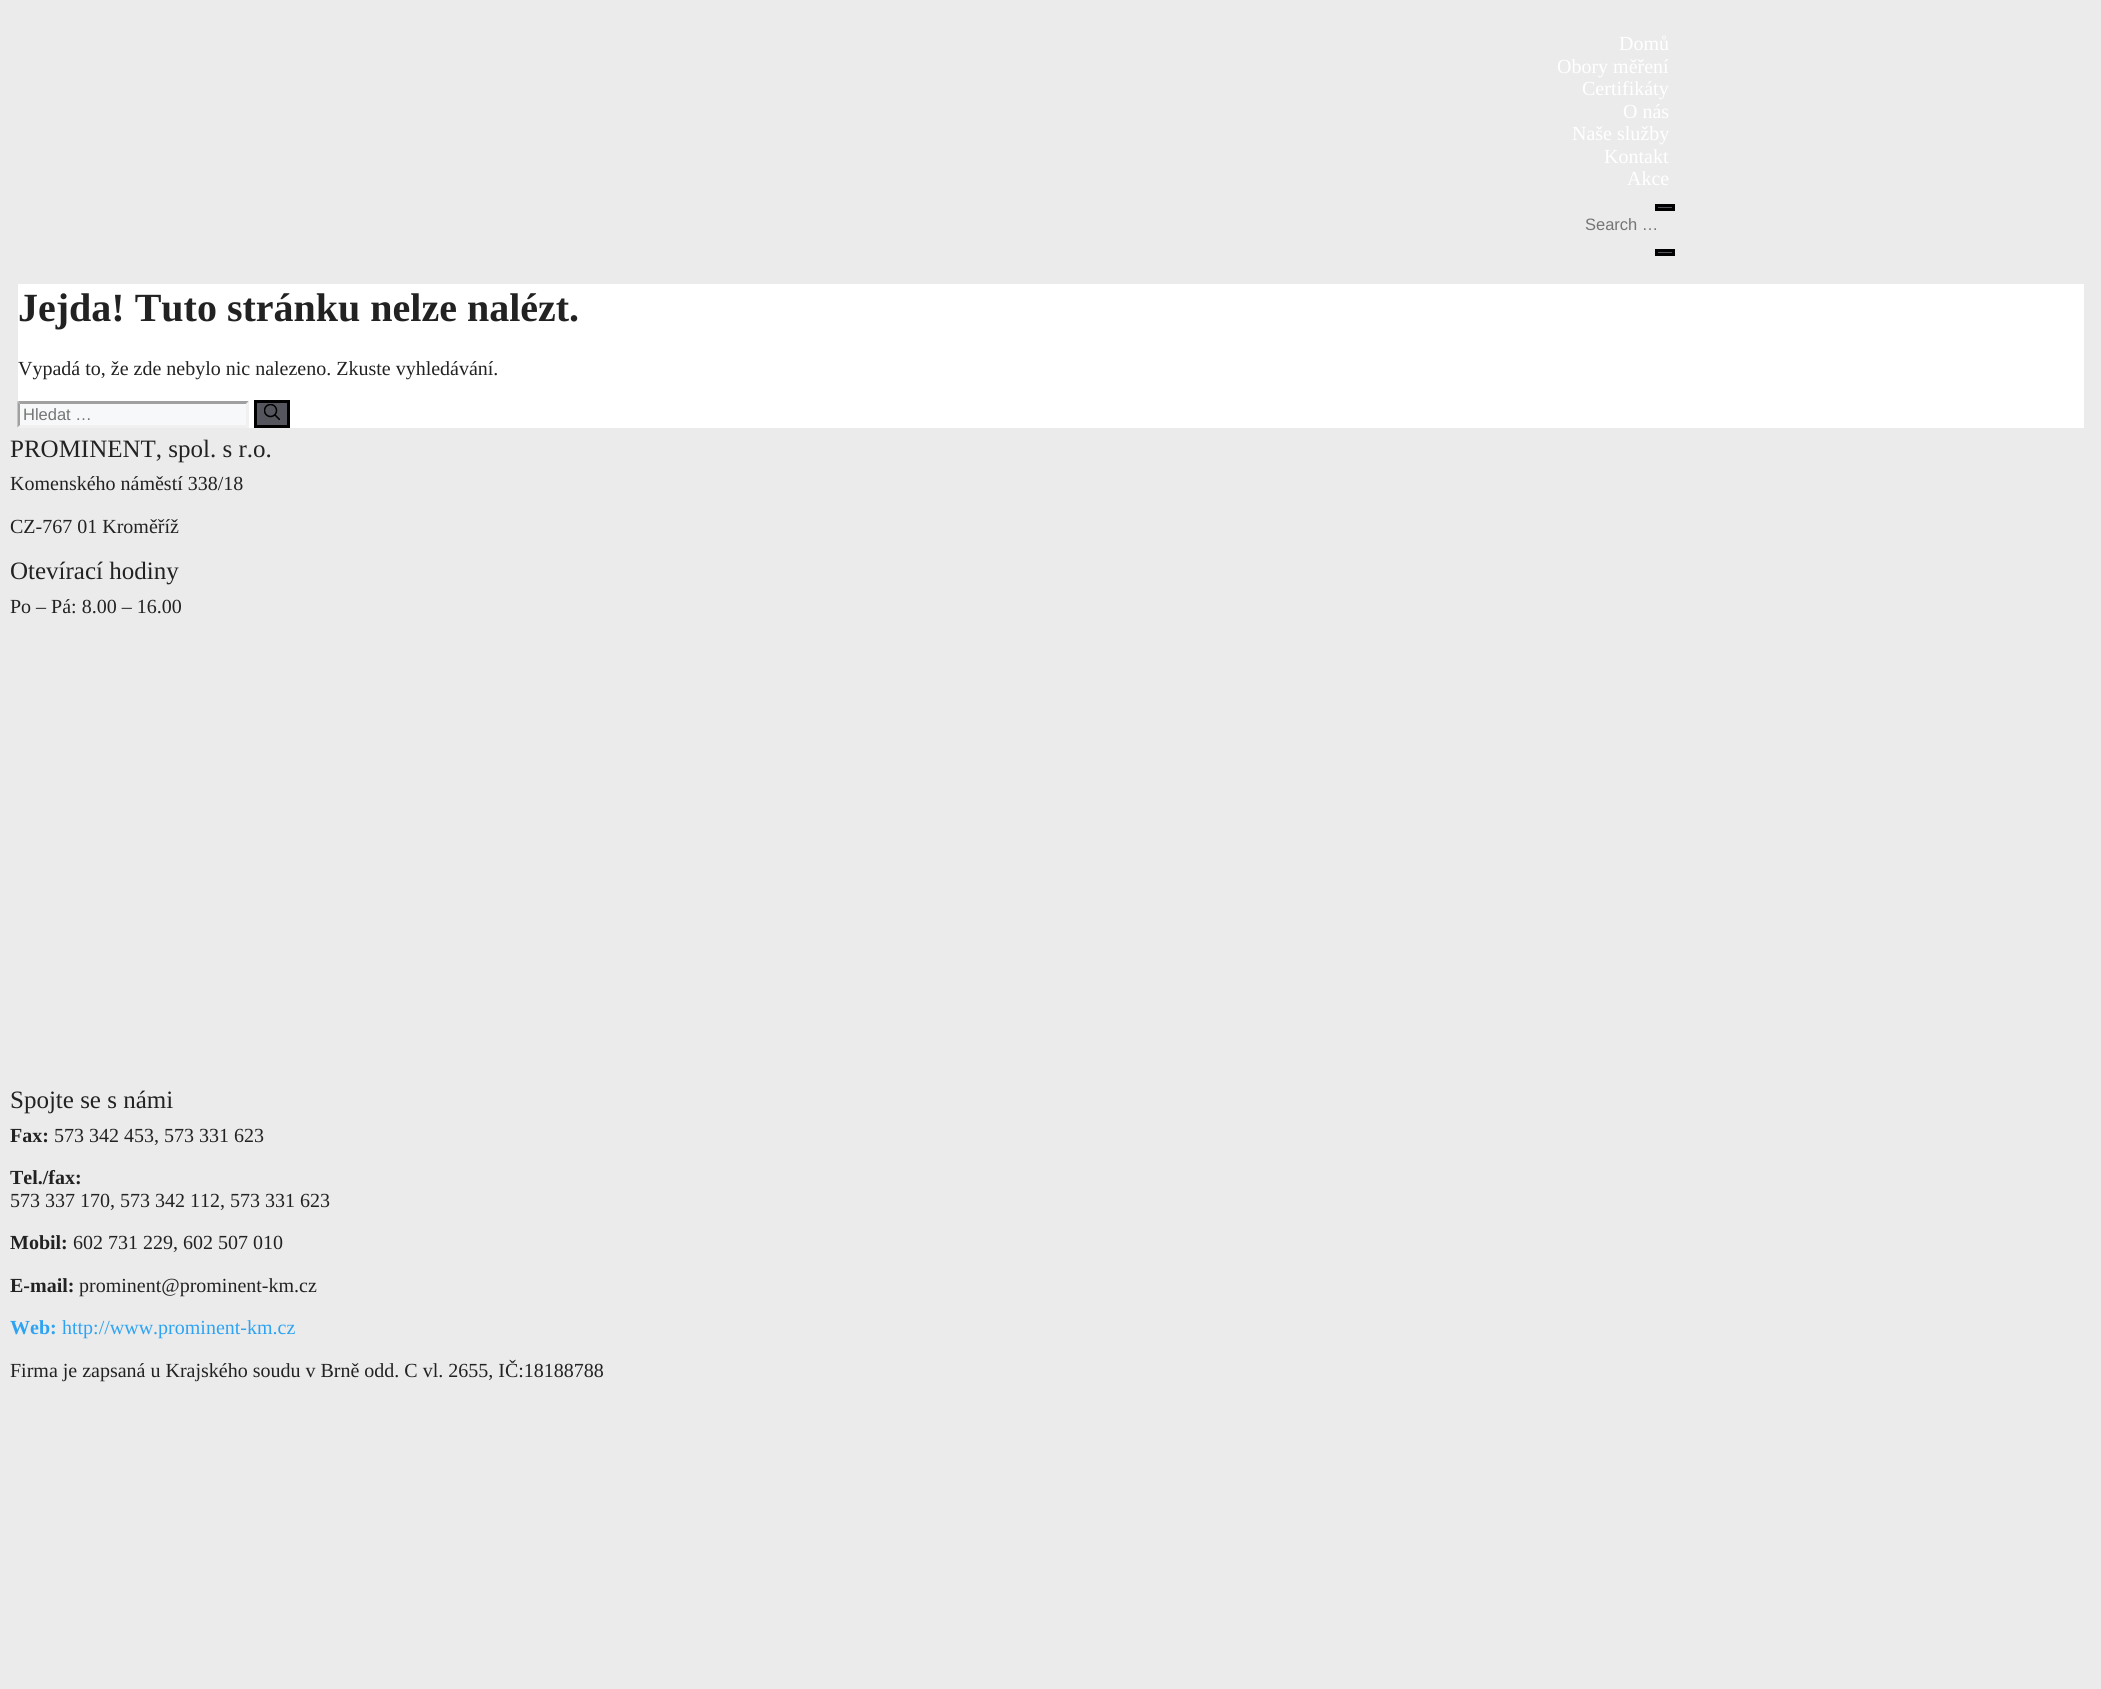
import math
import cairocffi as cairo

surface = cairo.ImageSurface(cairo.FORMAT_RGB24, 2101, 1689)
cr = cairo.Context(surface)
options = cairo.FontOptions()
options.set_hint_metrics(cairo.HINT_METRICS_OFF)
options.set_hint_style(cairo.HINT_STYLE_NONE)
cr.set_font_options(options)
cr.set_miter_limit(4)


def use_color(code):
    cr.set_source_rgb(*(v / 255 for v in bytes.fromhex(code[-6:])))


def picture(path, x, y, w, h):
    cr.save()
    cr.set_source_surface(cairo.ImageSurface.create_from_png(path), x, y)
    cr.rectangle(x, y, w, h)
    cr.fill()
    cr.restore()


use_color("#ebebeb")
cr.paint()
cr.select_font_face("Liberation Serif")
cr.set_font_size(20)
use_color("#ffffff")
cr.move_to(1619, 50)
cr.show_text("Domů")
cr.move_to(1557, 73)
cr.show_text("Obory měření")
cr.move_to(1582, 95)
cr.show_text("Certifikáty")
cr.move_to(1623, 118)
cr.show_text("O nás")
cr.move_to(1572, 140)
cr.show_text("Naše služby")
cr.move_to(1604, 163)
cr.show_text("Kontakt")
cr.move_to(1627, 185)
cr.show_text("Akce")
use_color("#55555e")
cr.rectangle(1656.5, 205.5, 17, 4)
cr.fill_preserve()
use_color("#000000")
cr.set_line_width(3)
cr.stroke()
cr.select_font_face("Liberation Sans")
cr.set_font_size(16.5)
use_color("#757575")
cr.move_to(1585, 230)
cr.show_text("Search …")
use_color("#55555e")
cr.rectangle(1656.5, 250.5, 17, 4)
cr.fill_preserve()
use_color("#000000")
cr.stroke()
use_color("#ffffff")
cr.rectangle(18, 284, 2066, 144)
cr.fill()
cr.select_font_face("Liberation Serif", cairo.FONT_SLANT_NORMAL, cairo.FONT_WEIGHT_BOLD)
cr.set_font_size(40)
use_color("#222222")
cr.move_to(18, 321)
cr.show_text("Jejda! Tuto stránku nelze nalézt.")
cr.select_font_face("Liberation Serif")
cr.set_font_size(20)
cr.move_to(18, 375)
cr.show_text("Vypadá to, že zde nebylo nic nalezeno. Zkuste vyhledávání.")
use_color("#f7f8f9")
cr.rectangle(18, 401, 231, 27)
cr.fill()
use_color("#a0a0a0")
cr.new_path()
cr.move_to(18, 401)
cr.line_to(249, 401)
cr.line_to(246, 404)
cr.line_to(20, 404)
cr.close_path()
cr.fill()
use_color("#f0f0f0")
cr.new_path()
cr.move_to(249, 401)
cr.line_to(249, 427.5)
cr.line_to(246, 425)
cr.line_to(246, 404)
cr.close_path()
cr.fill()
cr.new_path()
cr.move_to(249, 428)
cr.line_to(18, 428)
cr.line_to(20, 425)
cr.line_to(246, 425)
cr.close_path()
cr.fill()
use_color("#a0a0a0")
cr.new_path()
cr.move_to(17.5, 427.5)
cr.line_to(17.5, 401)
cr.line_to(20, 404)
cr.line_to(20, 425)
cr.close_path()
cr.fill()
cr.select_font_face("Liberation Sans")
cr.set_font_size(16.5)
use_color("#757575")
cr.move_to(23, 420)
cr.show_text("Hledat …")
use_color("#55555e")
cr.rectangle(255.5, 401.5, 33, 25)
cr.fill_preserve()
use_color("#000000")
cr.stroke()
picture("img1.png", 264, 404, 16, 16)
cr.select_font_face("Liberation Serif")
cr.set_font_size(25)
use_color("#222222")
cr.move_to(10, 457)
cr.show_text("PROMINENT, spol. s r.o.")
cr.set_font_size(20)
cr.move_to(10, 490)
cr.show_text("Komenského náměstí 338/18")
cr.move_to(10, 533)
cr.show_text("CZ-767 01 Kroměříž")
cr.set_font_size(25)
cr.move_to(10, 579)
cr.show_text("Otevírací hodiny")
cr.set_font_size(20)
cr.move_to(10, 613)
cr.show_text("Po – Pá: 8.00 – 16.00")
cr.set_font_size(25)
cr.move_to(10, 1108)
cr.show_text("Spojte se s námi")
cr.select_font_face("Liberation Serif", cairo.FONT_SLANT_NORMAL, cairo.FONT_WEIGHT_BOLD)
cr.set_font_size(20)
cr.move_to(10, 1142)
cr.show_text("Fax:")
cr.select_font_face("Liberation Serif")
cr.move_to(54, 1142)
cr.show_text("573 342 453, 573 331 623")
cr.select_font_face("Liberation Serif", cairo.FONT_SLANT_NORMAL, cairo.FONT_WEIGHT_BOLD)
cr.move_to(10, 1184)
cr.show_text("Tel./fax:")
cr.select_font_face("Liberation Serif")
cr.move_to(10, 1207)
cr.show_text("573 337 170, 573 342 112, 573 331 623")
cr.select_font_face("Liberation Serif", cairo.FONT_SLANT_NORMAL, cairo.FONT_WEIGHT_BOLD)
cr.move_to(10, 1249)
cr.show_text("Mobil:")
cr.select_font_face("Liberation Serif")
cr.move_to(73, 1249)
cr.show_text("602 731 229, 602 507 010")
cr.select_font_face("Liberation Serif", cairo.FONT_SLANT_NORMAL, cairo.FONT_WEIGHT_BOLD)
cr.move_to(10, 1292)
cr.show_text("E-mail:")
cr.select_font_face("Liberation Serif")
cr.move_to(79, 1292)
cr.show_text("prominent@prominent-km.cz")
cr.select_font_face("Liberation Serif", cairo.FONT_SLANT_NORMAL, cairo.FONT_WEIGHT_BOLD)
use_color("#2ea3f2")
cr.move_to(10, 1334)
cr.show_text("Web:")
cr.select_font_face("Liberation Serif")
cr.move_to(62, 1334)
cr.show_text("http://www.prominent-km.cz")
use_color("#222222")
cr.move_to(10, 1377)
cr.show_text("Firma je zapsaná u Krajského soudu v Brně odd. C vl. 2655, IČ:18188788")
surface.write_to_png("result.png")
